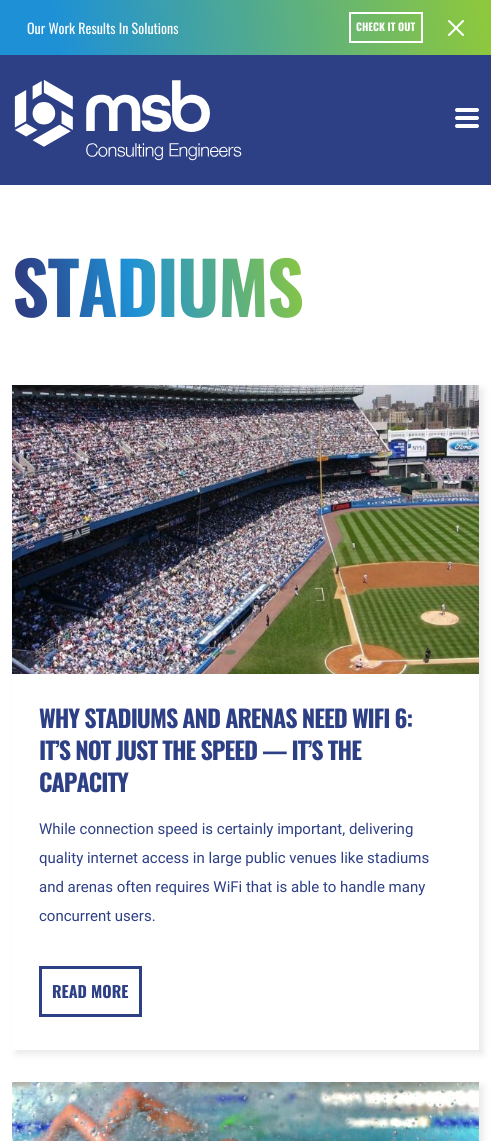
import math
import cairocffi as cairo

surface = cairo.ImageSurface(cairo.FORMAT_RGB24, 491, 1141)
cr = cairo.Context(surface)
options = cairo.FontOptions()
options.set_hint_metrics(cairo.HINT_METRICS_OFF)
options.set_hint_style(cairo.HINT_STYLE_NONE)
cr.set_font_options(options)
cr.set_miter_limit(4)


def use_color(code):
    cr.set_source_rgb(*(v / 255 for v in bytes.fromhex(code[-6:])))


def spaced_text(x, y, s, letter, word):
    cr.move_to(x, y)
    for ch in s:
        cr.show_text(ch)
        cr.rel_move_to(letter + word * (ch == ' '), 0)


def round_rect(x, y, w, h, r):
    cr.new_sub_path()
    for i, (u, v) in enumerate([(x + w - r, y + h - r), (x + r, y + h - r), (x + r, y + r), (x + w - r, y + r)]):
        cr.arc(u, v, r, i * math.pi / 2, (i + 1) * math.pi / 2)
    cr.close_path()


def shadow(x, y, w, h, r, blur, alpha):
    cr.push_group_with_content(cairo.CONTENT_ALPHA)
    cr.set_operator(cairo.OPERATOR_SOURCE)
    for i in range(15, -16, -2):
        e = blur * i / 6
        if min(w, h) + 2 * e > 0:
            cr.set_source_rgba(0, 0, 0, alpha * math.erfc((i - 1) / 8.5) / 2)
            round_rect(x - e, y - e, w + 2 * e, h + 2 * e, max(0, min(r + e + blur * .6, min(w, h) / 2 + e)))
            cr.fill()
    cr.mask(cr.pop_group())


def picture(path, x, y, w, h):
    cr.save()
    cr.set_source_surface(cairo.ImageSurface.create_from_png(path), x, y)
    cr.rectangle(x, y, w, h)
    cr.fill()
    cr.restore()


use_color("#ffffff")
cr.paint()
gradient = cairo.LinearGradient(1.8, 66, 489, -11)
gradient.add_color_stop_rgba(0.12, 0.118, 0.569, 0.839, 1)
gradient.add_color_stop_rgba(1, 0.561, 0.788, 0.227, 1)
cr.set_source(gradient)
cr.rectangle(0, 0, 491, 55)
cr.fill()
cr.select_font_face("Oswald")
cr.set_font_size(14)
use_color("#ffffff")
cr.move_to(27, 34)
cr.show_text("Our Work Results In Solutions")
cr.rectangle(350, 13, 72, 29)
cr.stroke()
cr.select_font_face("Oswald", cairo.FONT_SLANT_NORMAL, cairo.FONT_WEIGHT_BOLD)
cr.set_font_size(10.5)
cr.move_to(356, 31)
cr.show_text("CHECK IT OUT")
cr.new_path()
cr.move_to(463, 35)
cr.line_to(449, 21)
cr.move_to(463, 21)
cr.line_to(449, 35)
cr.set_line_cap(cairo.LINE_CAP_ROUND)
cr.set_line_join(cairo.LINE_JOIN_ROUND)
cr.stroke()
use_color("#2d3f85")
cr.rectangle(0, 55, 491, 130)
cr.fill()
picture("img1.png", 14, 79, 228, 82)
use_color("#ffffff")
round_rect(455, 108, 24, 4, 2)
cr.fill()
round_rect(455, 116, 24, 4, 2)
cr.fill()
round_rect(455, 124, 24, 4, 2)
cr.fill()
cr.set_font_size(72)
gradient = cairo.LinearGradient(-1.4, 313, 316, 257)
gradient.add_color_stop_rgba(0.09, 0.176, 0.247, 0.522, 1)
gradient.add_color_stop_rgba(0.42, 0.118, 0.569, 0.839, 1)
gradient.add_color_stop_rgba(0.99, 0.561, 0.788, 0.227, 1)
cr.set_source(gradient)
spaced_text(12, 317, "STADIUMS", -1.5, 0)
cr.save()
cr.set_fill_rule(cairo.FILL_RULE_EVEN_ODD)
cr.new_path()
cr.move_to(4, 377)
cr.line_to(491, 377)
cr.line_to(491, 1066)
cr.line_to(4, 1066)
cr.close_path()
cr.move_to(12, 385)
cr.line_to(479, 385)
cr.line_to(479, 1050)
cr.line_to(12, 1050)
cr.close_path()
cr.clip()
use_color("#91908d")
shadow(16, 389, 467, 665, 0, 3.5, 0.2)
cr.restore()
picture("img2.png", 12, 385, 467, 289)
cr.set_font_size(24)
use_color("#2d3f85")
spaced_text(39, 728, "WHY STADIUMS AND ARENAS NEED WIFI 6:", -1, 0)
spaced_text(39, 760, "IT’S NOT JUST THE SPEED — IT’S THE", -1, 0)
spaced_text(39, 792, "CAPACITY", -1, 0)
cr.select_font_face("Roboto")
cr.set_font_size(15)
cr.move_to(39, 834)
cr.show_text("While connection speed is certainly important, delivering")
cr.move_to(39, 863)
cr.show_text("quality internet access in large public venues like stadiums")
cr.move_to(39, 892)
cr.show_text("and arenas often requires WiFi that is able to handle many")
cr.move_to(39, 921)
cr.show_text("concurrent users.")
cr.rectangle(40.5, 967.5, 100, 48)
cr.set_line_width(3)
cr.set_line_cap(cairo.LINE_CAP_BUTT)
cr.set_line_join(cairo.LINE_JOIN_MITER)
cr.stroke()
cr.select_font_face("Oswald", cairo.FONT_SLANT_NORMAL, cairo.FONT_WEIGHT_BOLD)
cr.set_font_size(16)
cr.move_to(52, 998)
cr.show_text("READ MORE")
use_color("#91908d")
shadow(16, 1086, 467, 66, 0, 3.5, 0.2)
picture("img3.png", 12, 1082, 467, 59)
surface.write_to_png("result.png")
